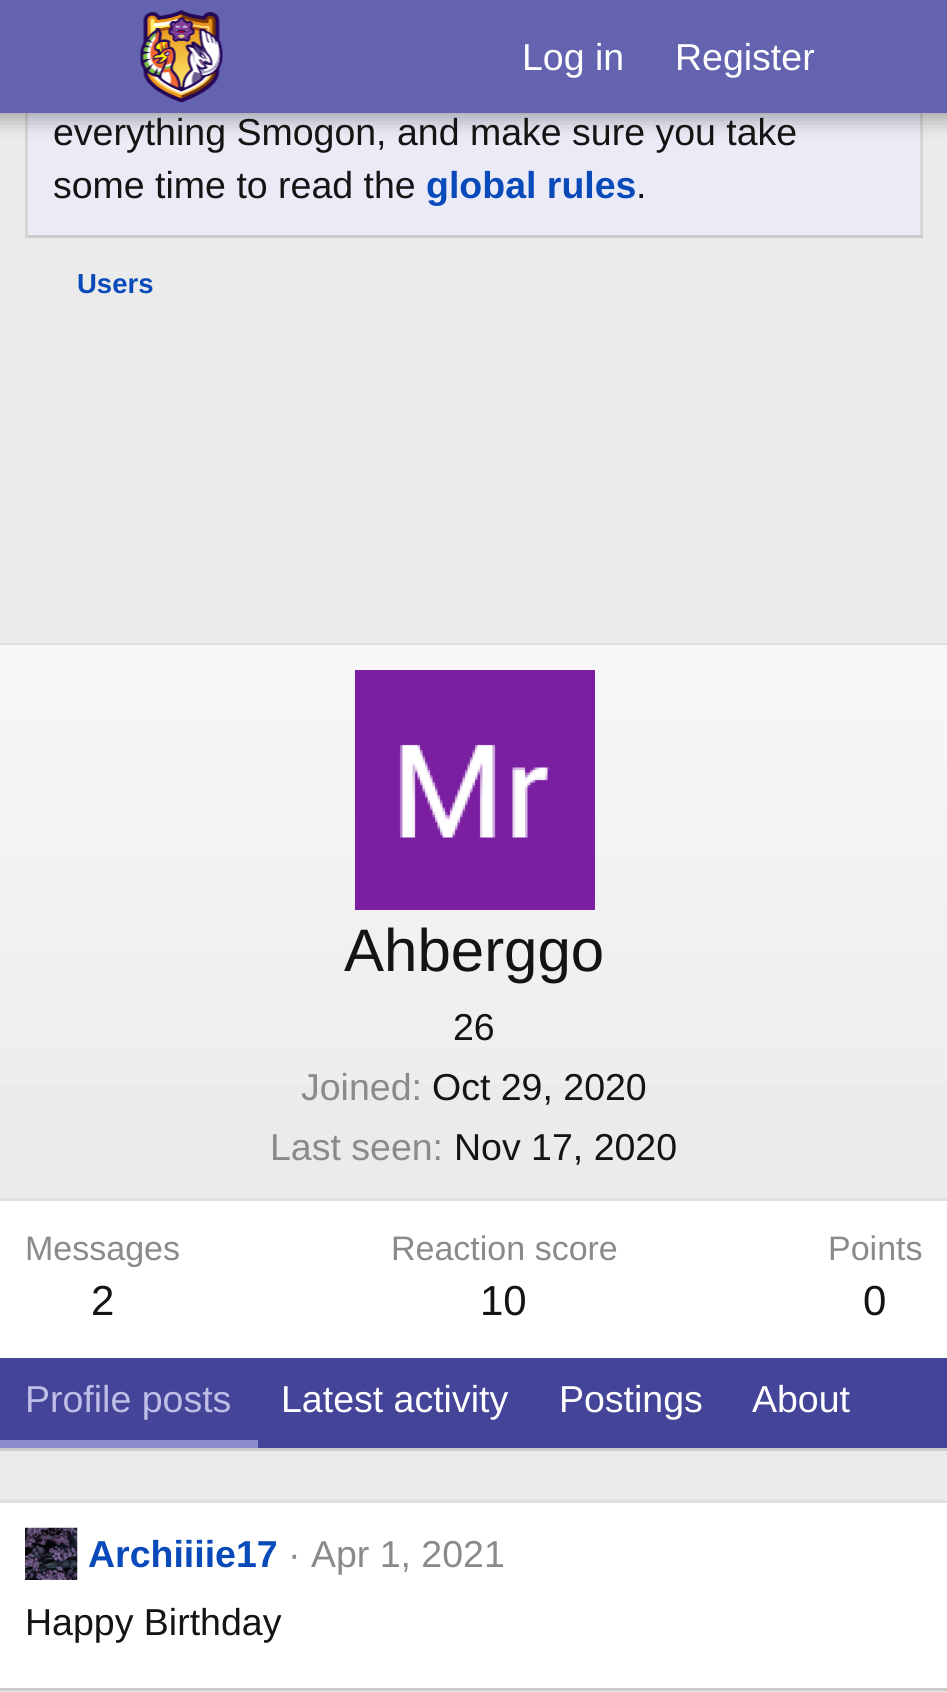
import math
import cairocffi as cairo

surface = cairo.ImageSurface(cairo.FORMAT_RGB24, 947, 1692)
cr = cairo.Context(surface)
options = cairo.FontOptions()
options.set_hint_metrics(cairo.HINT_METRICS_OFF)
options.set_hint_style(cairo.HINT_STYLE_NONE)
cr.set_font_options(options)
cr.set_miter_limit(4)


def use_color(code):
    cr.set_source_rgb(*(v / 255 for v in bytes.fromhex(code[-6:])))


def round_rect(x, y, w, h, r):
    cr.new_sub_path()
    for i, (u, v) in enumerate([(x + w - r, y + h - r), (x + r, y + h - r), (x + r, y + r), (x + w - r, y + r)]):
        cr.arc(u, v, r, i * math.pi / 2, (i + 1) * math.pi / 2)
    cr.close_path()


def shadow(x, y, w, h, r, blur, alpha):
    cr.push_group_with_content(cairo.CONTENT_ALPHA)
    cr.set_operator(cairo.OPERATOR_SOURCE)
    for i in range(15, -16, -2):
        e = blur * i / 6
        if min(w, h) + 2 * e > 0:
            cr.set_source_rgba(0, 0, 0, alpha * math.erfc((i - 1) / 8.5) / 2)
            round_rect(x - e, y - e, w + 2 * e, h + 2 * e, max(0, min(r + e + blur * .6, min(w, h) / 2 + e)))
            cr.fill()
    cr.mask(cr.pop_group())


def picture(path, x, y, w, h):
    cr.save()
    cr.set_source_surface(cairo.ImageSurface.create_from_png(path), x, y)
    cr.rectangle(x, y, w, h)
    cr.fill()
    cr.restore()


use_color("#ebebeb")
cr.paint()
use_color("#d6d6d6")
cr.rectangle(920, 113, 3, 125)
cr.fill()
use_color("#cccccc")
cr.rectangle(25, 235, 898, 3)
cr.fill()
use_color("#d6d6d6")
cr.rectangle(25, 113, 3, 125)
cr.fill()
use_color("#ebebf7")
cr.rectangle(28, 113, 892, 122)
cr.fill()
use_color("#000000")
shadow(-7, -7, 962, 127, 0, 10, 0.3)
use_color("#6363b0")
cr.rectangle(0, 0, 947, 113)
cr.fill()
picture("img1.png", 140, 10, 83, 93)
cr.select_font_face("Liberation Sans")
cr.set_font_size(37.5)
use_color("#ffffff")
cr.move_to(522, 70)
cr.show_text("Log in")
cr.move_to(675, 70)
cr.show_text("Register")
use_color("#141414")
cr.move_to(53, 145)
cr.show_text("everything Smogon, and make sure you take")
cr.move_to(53, 198)
cr.show_text("some time to read the")
cr.select_font_face("Liberation Sans", cairo.FONT_SLANT_NORMAL, cairo.FONT_WEIGHT_BOLD)
use_color("#094aba")
cr.move_to(426, 198)
cr.show_text("global rules")
cr.select_font_face("Liberation Sans")
use_color("#141414")
cr.move_to(636, 198)
cr.show_text(".")
cr.select_font_face("Liberation Sans", cairo.FONT_SLANT_NORMAL, cairo.FONT_WEIGHT_BOLD)
cr.set_font_size(27.5)
use_color("#094aba")
cr.move_to(77, 293)
cr.show_text("Users")
use_color("#ffffff")
cr.rectangle(0, 1201, 947, 157)
cr.fill()
use_color("#e0e0e0")
cr.rectangle(0, 643, 947, 2)
cr.fill()
use_color("#cccccc")
cr.rectangle(0, 1448, 947, 3)
cr.fill()
gradient = cairo.LinearGradient(474, 1198, 474, 645)
gradient.add_color_stop_rgba(0, 0.922, 0.922, 0.922, 1)
gradient.add_color_stop_rgba(1, 0.969, 0.969, 0.969, 1)
cr.set_source(gradient)
cr.rectangle(0, 645, 947, 438)
cr.fill()
use_color("#e0e0e0")
cr.rectangle(0, 1198, 947, 3)
cr.fill()
picture("img2.png", 355, 670, 240, 240)
cr.select_font_face("Liberation Sans")
cr.set_font_size(60)
use_color("#141414")
cr.move_to(344, 971)
cr.show_text("Ahberggo")
cr.set_font_size(37.5)
cr.move_to(453, 1040)
cr.show_text("26")
use_color("#8a8a8a")
cr.move_to(301, 1100)
cr.show_text("Joined:")
use_color("#141414")
cr.move_to(432, 1100)
cr.show_text("Oct 29, 2020")
use_color("#8a8a8a")
cr.move_to(270, 1160)
cr.show_text("Last seen:")
use_color("#141414")
cr.move_to(454, 1160)
cr.show_text("Nov 17, 2020")
cr.set_font_size(34)
use_color("#8a8a8a")
cr.move_to(25, 1260)
cr.show_text("Messages")
cr.set_font_size(42)
use_color("#141414")
cr.move_to(91, 1315)
cr.show_text("2")
cr.set_font_size(34)
use_color("#8a8a8a")
cr.move_to(391, 1260)
cr.show_text("Reaction score")
cr.set_font_size(42)
use_color("#141414")
cr.move_to(480, 1315)
cr.show_text("10")
cr.set_font_size(34)
use_color("#8a8a8a")
cr.move_to(828, 1260)
cr.show_text("Points")
cr.set_font_size(42)
use_color("#141414")
cr.move_to(863, 1315)
cr.show_text("0")
use_color("#444498")
cr.rectangle(0, 1358, 947, 90)
cr.fill()
use_color("#8d8dcd")
cr.rectangle(0, 1440, 258, 8)
cr.fill()
cr.set_font_size(37.5)
use_color("#bebee7")
cr.move_to(25, 1412)
cr.show_text("Profile posts")
use_color("#ffffff")
cr.move_to(281, 1412)
cr.show_text("Latest activity")
cr.move_to(559, 1412)
cr.show_text("Postings")
cr.move_to(752, 1412)
cr.show_text("About")
cr.rectangle(0, 1503, 947, 185)
cr.fill()
use_color("#e0e0e0")
cr.rectangle(0, 1500, 947, 3)
cr.fill()
use_color("#cccccc")
cr.rectangle(0, 1688, 947, 3)
cr.fill()
picture("img3.png", 25, 1527, 53, 53)
cr.select_font_face("Liberation Sans", cairo.FONT_SLANT_NORMAL, cairo.FONT_WEIGHT_BOLD)
use_color("#094aba")
cr.move_to(88, 1567)
cr.show_text("Archiiiie17")
cr.select_font_face("Liberation Sans")
use_color("#8a8a8a")
cr.move_to(288, 1567)
cr.show_text("· Apr 1, 2021")
use_color("#141414")
cr.move_to(25, 1635)
cr.show_text("Happy Birthday")
surface.write_to_png("result.png")
